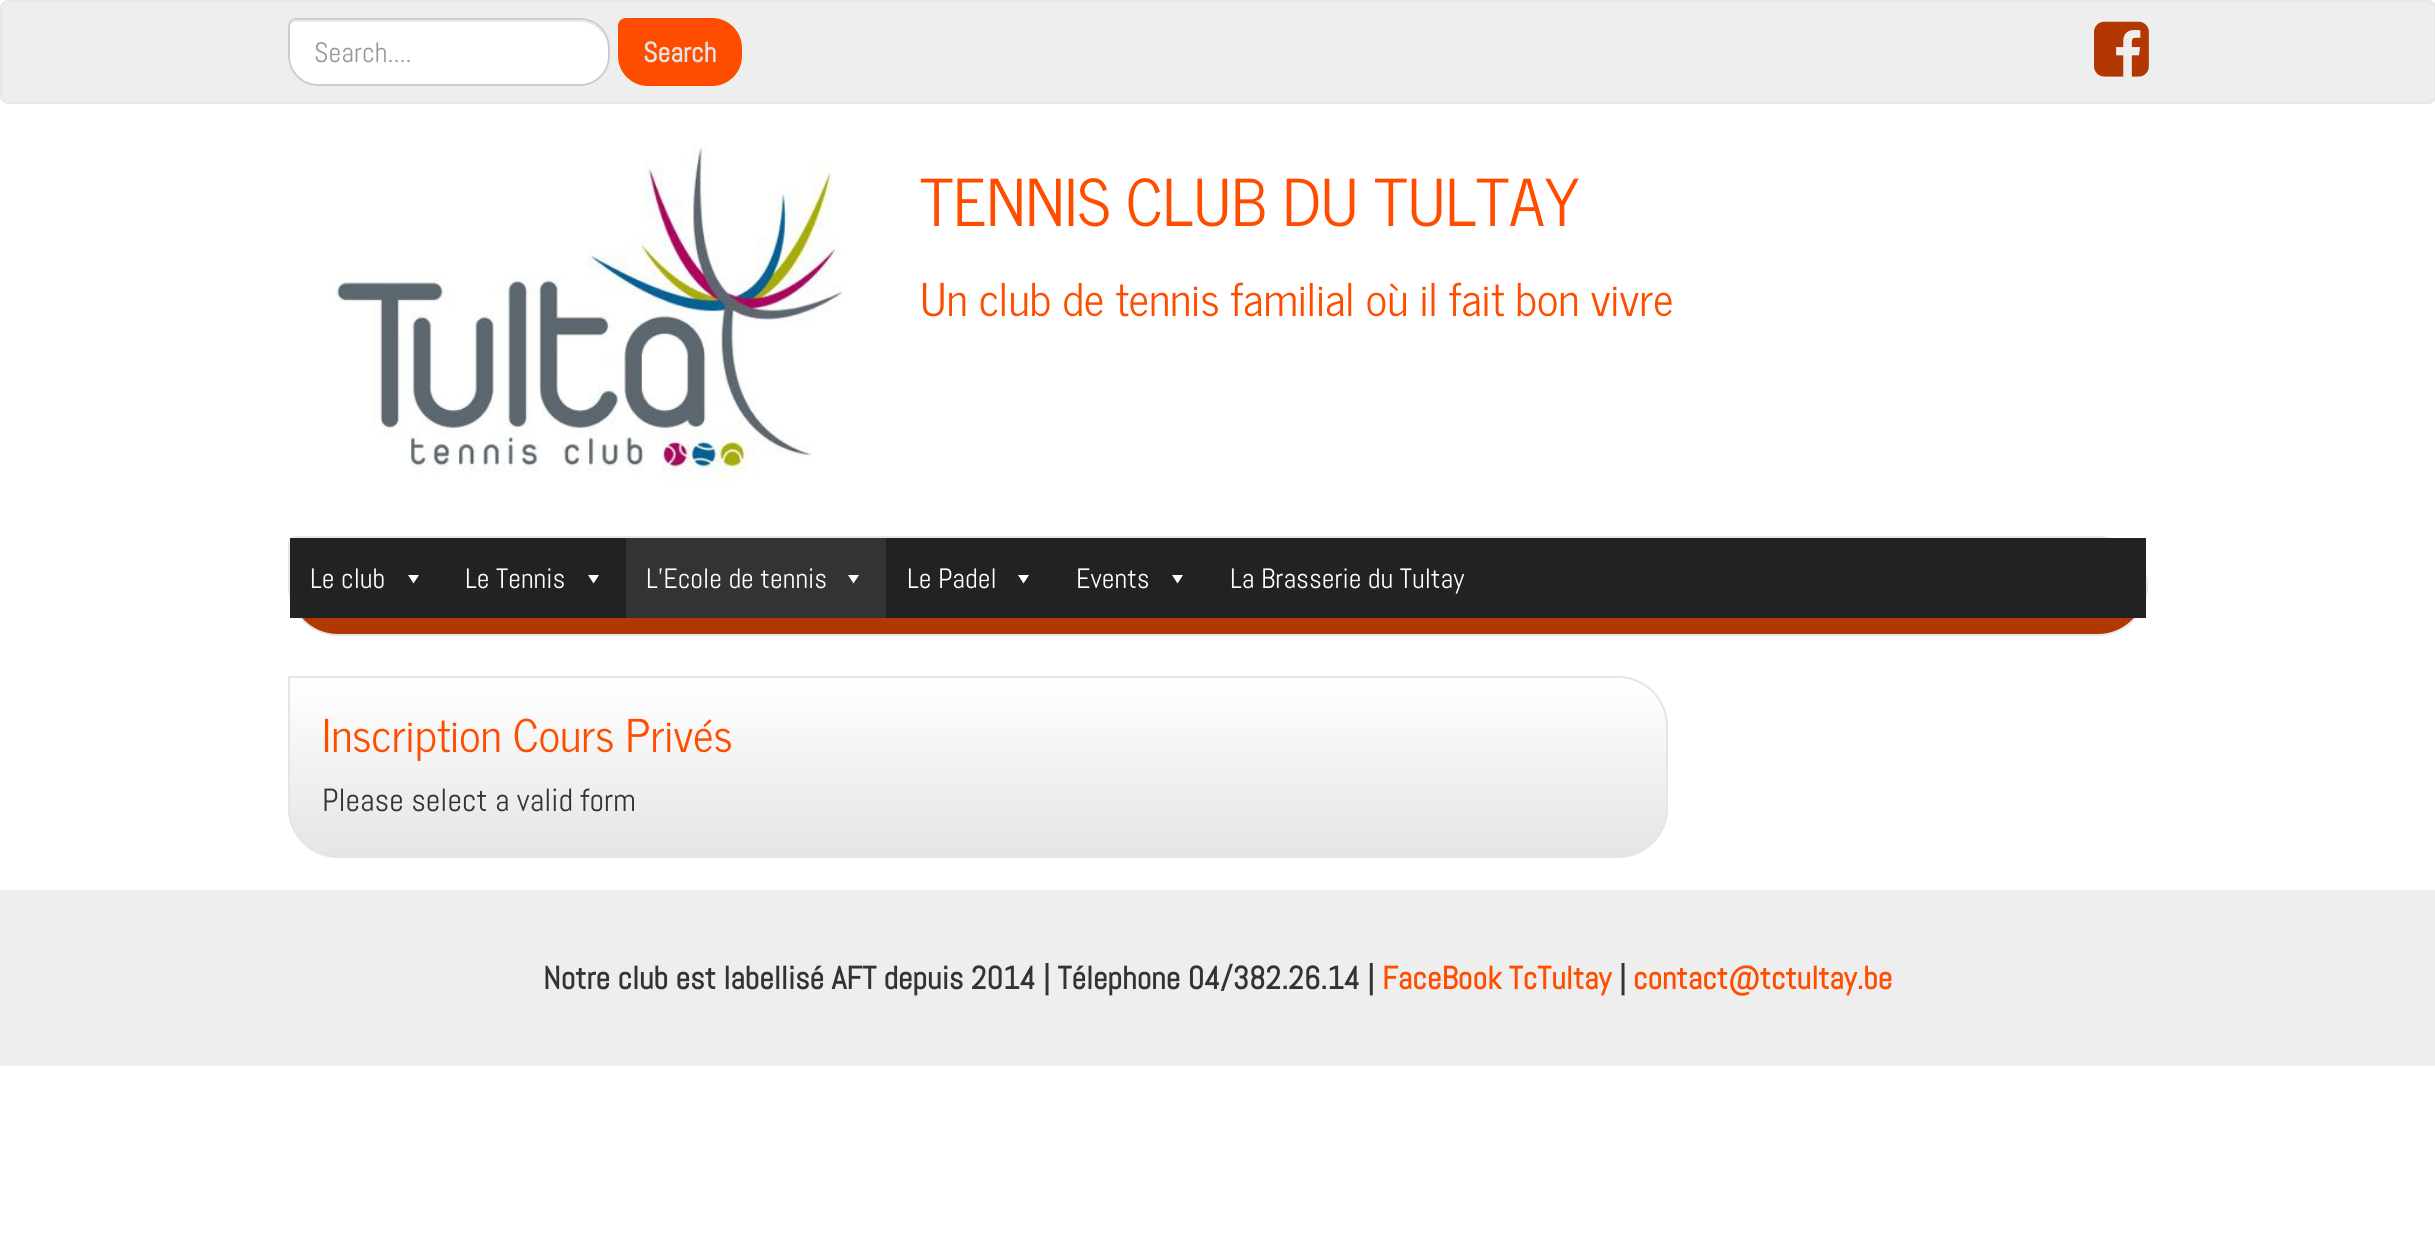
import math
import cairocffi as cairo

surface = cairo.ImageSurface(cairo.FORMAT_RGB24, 2435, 1254)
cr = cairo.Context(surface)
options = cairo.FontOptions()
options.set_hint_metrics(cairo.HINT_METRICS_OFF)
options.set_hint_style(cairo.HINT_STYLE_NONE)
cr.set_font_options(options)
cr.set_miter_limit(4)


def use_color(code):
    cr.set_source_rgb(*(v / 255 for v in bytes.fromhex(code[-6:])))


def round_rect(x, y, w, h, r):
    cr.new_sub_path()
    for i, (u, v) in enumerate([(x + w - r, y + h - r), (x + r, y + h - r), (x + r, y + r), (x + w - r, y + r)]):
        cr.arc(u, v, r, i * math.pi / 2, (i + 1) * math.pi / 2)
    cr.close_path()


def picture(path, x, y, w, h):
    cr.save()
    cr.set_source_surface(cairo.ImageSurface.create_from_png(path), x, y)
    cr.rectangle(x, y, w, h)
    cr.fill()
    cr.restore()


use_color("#ffffff")
cr.paint()
use_color("#eeeeee")
round_rect(1, 1, 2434, 102, 7)
cr.fill_preserve()
use_color("#e7e7e7")
cr.stroke()
use_color("#ffffff")
cr.new_path()
cr.move_to(296, 18)
cr.line_to(580, 18)
cr.curve_to(596.5, 18, 610, 31.5, 610, 48)
cr.line_to(610, 56)
cr.curve_to(610, 72.5, 596.5, 86, 580, 86)
cr.line_to(318, 86)
cr.curve_to(301.5, 86, 288, 72.5, 288, 56)
cr.line_to(288, 26)
cr.curve_to(288, 21.5, 291.5, 18, 296, 18)
cr.close_path()
cr.fill()
use_color("#ececec")
cr.new_path()
cr.move_to(296, 22)
cr.line_to(580, 22)
cr.curve_to(595, 22, 608, 35, 608, 50)
cr.line_to(608, 48)
cr.curve_to(608, 33, 595, 20, 580, 20)
cr.line_to(296, 20)
cr.curve_to(293, 20, 290, 23, 290, 26)
cr.line_to(290, 28)
cr.curve_to(290, 25, 293, 22, 296, 22)
cr.close_path()
cr.fill()
cr.new_path()
cr.move_to(296, 19)
cr.line_to(580, 19)
cr.curve_to(596, 19, 609, 32, 609, 48)
cr.line_to(609, 56)
cr.curve_to(609, 72, 596, 85, 580, 85)
cr.line_to(318, 85)
cr.curve_to(302, 85, 289, 72, 289, 56)
cr.line_to(289, 26)
cr.curve_to(289, 22, 292, 19, 296, 19)
cr.close_path()
use_color("#cccccc")
cr.stroke()
cr.select_font_face("Abel")
cr.set_font_size(28)
use_color("#999999")
cr.move_to(314, 62)
cr.show_text("Search....")
use_color("#ff4d00")
cr.new_path()
cr.move_to(626, 19)
cr.line_to(712, 19)
cr.curve_to(728, 19, 741, 32, 741, 48)
cr.line_to(741, 56)
cr.curve_to(741, 72, 728, 85, 712, 85)
cr.line_to(648, 85)
cr.curve_to(632, 85, 619, 72, 619, 56)
cr.line_to(619, 26)
cr.curve_to(619, 22, 622, 19, 626, 19)
cr.close_path()
cr.fill_preserve()
cr.stroke()
cr.select_font_face("Abel", cairo.FONT_SLANT_NORMAL, cairo.FONT_WEIGHT_BOLD)
use_color("#e5e5e5")
cr.move_to(643, 62)
cr.show_text("Search")
picture("img1.png", 2094, 21, 55, 56)
picture("img2.png", 335, 144, 508, 338)
cr.select_font_face("News Cycle")
cr.set_font_size(64)
use_color("#ff4d00")
cr.move_to(920, 226)
cr.show_text("TENNIS CLUB DU TULTAY")
cr.set_font_size(44.75)
cr.move_to(920, 316)
cr.show_text("Un club de tennis familial où il fait bon vivre")
use_color("#b23702")
cr.new_path()
cr.move_to(296, 537)
cr.line_to(2098, 537)
cr.curve_to(2125, 537, 2147, 559, 2147, 586)
cr.curve_to(2147, 613, 2125, 635, 2098, 635)
cr.line_to(338, 635)
cr.curve_to(311, 635, 289, 613, 289, 586)
cr.line_to(289, 544)
cr.curve_to(289, 540, 292, 537, 296, 537)
cr.close_path()
cr.fill_preserve()
use_color("#e7e7e7")
cr.stroke()
use_color("#222222")
cr.rectangle(290, 538, 1856, 80)
cr.fill()
cr.select_font_face("Abel")
cr.set_font_size(28)
use_color("#ffffff")
cr.move_to(310, 588)
cr.show_text("Le club")
cr.new_path()
cr.move_to(419, 575)
cr.line_to(413.5, 583.5)
cr.line_to(408, 575)
cr.close_path()
cr.fill()
cr.move_to(465, 588)
cr.show_text("Le Tennis")
cr.new_path()
cr.move_to(599, 575)
cr.line_to(593.5, 583.5)
cr.line_to(588, 575)
cr.close_path()
cr.fill()
use_color("#333333")
cr.rectangle(626, 538, 260, 80)
cr.fill()
use_color("#ffffff")
cr.move_to(646, 588)
cr.show_text("L’Ecole de tennis")
cr.new_path()
cr.move_to(859, 575)
cr.line_to(853.5, 583.5)
cr.line_to(848, 575)
cr.close_path()
cr.fill()
cr.move_to(907, 588)
cr.show_text("Le Padel")
cr.new_path()
cr.move_to(1029, 575)
cr.line_to(1023.5, 583.5)
cr.line_to(1018, 575)
cr.close_path()
cr.fill()
cr.move_to(1076, 588)
cr.show_text("Events")
cr.new_path()
cr.move_to(1183, 575)
cr.line_to(1177.5, 583.5)
cr.line_to(1172, 575)
cr.close_path()
cr.fill()
cr.move_to(1230, 588)
cr.show_text("La Brasserie du Tultay")
cr.save()
cr.new_path()
cr.move_to(288, 676)
cr.line_to(1618, 676)
cr.curve_to(1645.5, 676, 1668, 698.5, 1668, 726)
cr.line_to(1668, 808)
cr.curve_to(1668, 835.5, 1645.5, 858, 1618, 858)
cr.line_to(338, 858)
cr.curve_to(310.5, 858, 288, 835.5, 288, 808)
cr.close_path()
cr.clip()
gradient = cairo.LinearGradient(978, 678, 978, 856)
gradient.add_color_stop_rgba(0, 1, 1, 1, 1)
gradient.add_color_stop_rgba(1, 0.898, 0.898, 0.898, 1)
cr.set_source(gradient)
cr.rectangle(288, 678, 1380, 178)
cr.fill()
cr.restore()
cr.new_path()
cr.move_to(289, 677)
cr.line_to(1618, 677)
cr.curve_to(1645, 677, 1667, 699, 1667, 726)
cr.line_to(1667, 808)
cr.curve_to(1667, 835, 1645, 857, 1618, 857)
cr.line_to(338, 857)
cr.curve_to(311, 857, 289, 835, 289, 808)
cr.close_path()
use_color("#e5e5e5")
cr.stroke()
cr.select_font_face("News Cycle")
cr.set_font_size(44.75)
use_color("#ff4d00")
cr.move_to(322, 752)
cr.show_text("Inscription Cours Privés")
cr.select_font_face("Abel")
cr.set_font_size(32)
use_color("#333333")
cr.move_to(322, 811)
cr.show_text("Please select a valid form")
use_color("#eeeeee")
cr.rectangle(0, 890, 2435, 176)
cr.fill()
cr.select_font_face("Abel", cairo.FONT_SLANT_NORMAL, cairo.FONT_WEIGHT_BOLD)
use_color("#333333")
cr.move_to(543, 989)
cr.show_text("Notre club est labellisé AFT depuis 2014 | Télephone 04/382.26.14 |")
use_color("#ff4d00")
cr.move_to(1382, 989)
cr.show_text("FaceBook TcTultay")
use_color("#333333")
cr.move_to(1619, 989)
cr.show_text("|")
use_color("#ff4d00")
cr.move_to(1633, 989)
cr.show_text("contact@tctultay.be")
surface.write_to_png("result.png")
